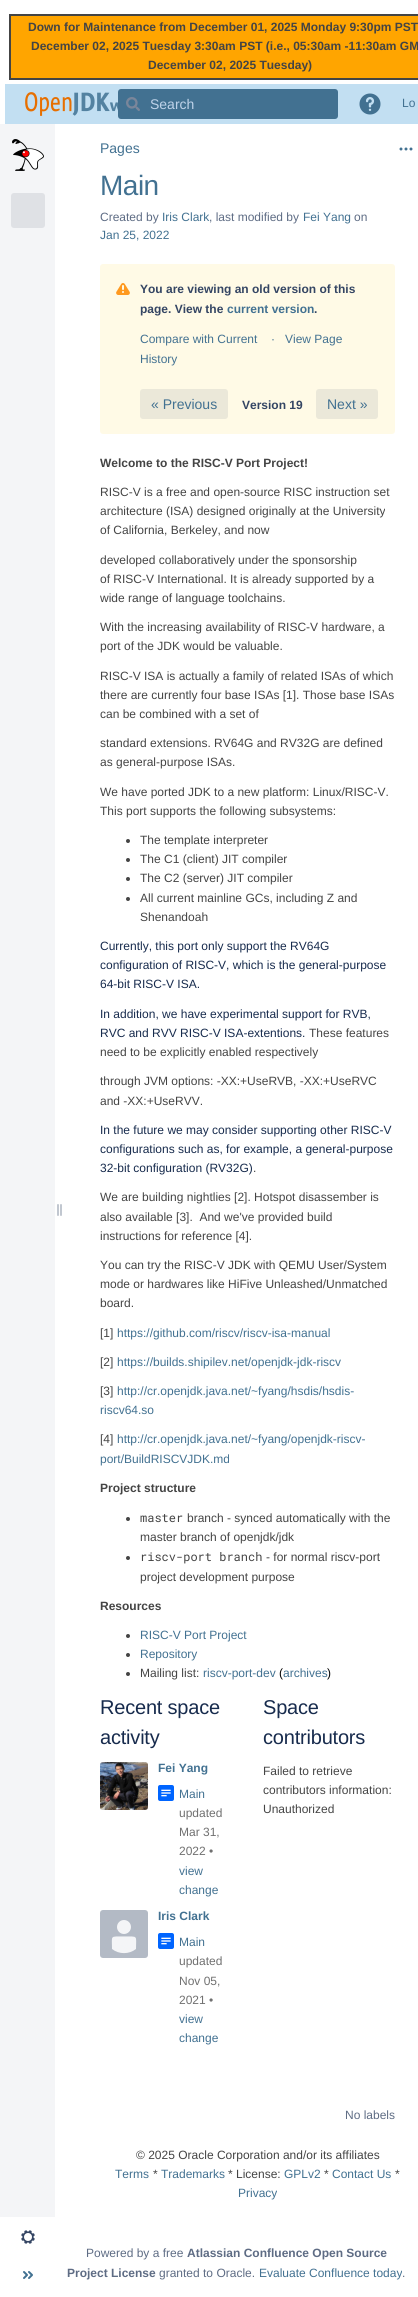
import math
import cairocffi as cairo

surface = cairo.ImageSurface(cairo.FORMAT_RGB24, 418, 2297)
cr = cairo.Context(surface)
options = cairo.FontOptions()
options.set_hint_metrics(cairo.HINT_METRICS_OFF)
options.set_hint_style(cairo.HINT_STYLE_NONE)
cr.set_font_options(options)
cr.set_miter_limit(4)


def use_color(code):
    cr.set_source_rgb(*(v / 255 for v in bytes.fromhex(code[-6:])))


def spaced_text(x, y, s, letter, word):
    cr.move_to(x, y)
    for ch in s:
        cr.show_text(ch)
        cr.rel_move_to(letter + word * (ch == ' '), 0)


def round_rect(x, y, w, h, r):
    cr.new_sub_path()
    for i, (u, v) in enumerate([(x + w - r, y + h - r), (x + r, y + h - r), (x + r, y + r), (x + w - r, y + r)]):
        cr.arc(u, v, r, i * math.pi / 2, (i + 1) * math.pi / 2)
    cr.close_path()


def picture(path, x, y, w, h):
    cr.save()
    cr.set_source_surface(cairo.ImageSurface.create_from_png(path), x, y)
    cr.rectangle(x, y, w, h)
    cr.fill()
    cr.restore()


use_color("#ffffff")
cr.paint()
use_color("#ffa500")
cr.rectangle(10, 15, 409, 64)
cr.fill_preserve()
use_color("#444444")
cr.stroke()
cr.select_font_face("Liberation Sans", cairo.FONT_SLANT_NORMAL, cairo.FONT_WEIGHT_BOLD)
cr.set_font_size(12)
cr.move_to(28, 31)
cr.show_text("Down for Maintenance from December 01, 2025 Monday 9:30pm PST")
cr.move_to(31, 50)
cr.show_text("December 02, 2025 Tuesday 3:30am PST (i.e., 05:30am -11:30am GM")
cr.move_to(148, 69)
cr.show_text("December 02, 2025 Tuesday)")
use_color("#c2dff2")
cr.rectangle(5, 84, 413, 40)
cr.fill()
picture("img1.png", 25, 92, 93, 24)
use_color("#427191")
round_rect(118, 89, 220, 30, 3)
cr.fill()
picture("img2.png", 126, 97, 14, 14)
cr.select_font_face("Liberation Sans")
cr.set_font_size(14)
use_color("#bfd3e9")
cr.move_to(150, 109)
cr.show_text("Search")
picture("img3.png", 359, 93, 22, 22)
cr.set_font_size(12)
use_color("#427191")
cr.move_to(402, 107)
cr.show_text("Lo")
use_color("#f4f5f7")
cr.rectangle(0, 124, 55, 2093)
cr.fill()
picture("img4.png", 12, 139, 32, 32)
use_color("#dfe1e5")
round_rect(11, 193, 34, 35, 3)
cr.fill()
picture("img5.png", 57, 1204, 5, 12)
picture("img6.png", 21, 2230, 14, 14)
picture("img7.png", 23, 2271, 10, 8)
cr.set_font_size(14)
use_color("#427191")
cr.move_to(100, 153)
cr.show_text("Pages")
cr.set_font_size(28)
spaced_text(100, 195, "Main", -0.5, 0)
picture("img8.png", 399, 147, 14, 4)
cr.set_font_size(12)
use_color("#5e6c84")
cr.move_to(100, 221)
cr.show_text("Created by")
use_color("#427191")
cr.move_to(162, 221)
cr.show_text("Iris Clark")
use_color("#5e6c84")
cr.move_to(209, 221)
cr.show_text(", last modified by")
use_color("#427191")
cr.move_to(303, 221)
cr.show_text("Fei Yang")
use_color("#5e6c84")
cr.move_to(354, 221)
cr.show_text("on")
use_color("#427191")
cr.move_to(100, 239)
cr.show_text("Jan 25, 2022")
use_color("#fffae6")
round_rect(100, 264, 295, 170, 3)
cr.fill()
picture("img9.png", 116, 283, 14, 12)
cr.select_font_face("Liberation Sans", cairo.FONT_SLANT_NORMAL, cairo.FONT_WEIGHT_BOLD)
use_color("#344563")
cr.move_to(140, 293)
cr.show_text("You are viewing an old version of this")
cr.move_to(140, 313)
cr.show_text("page. View the")
use_color("#427191")
cr.move_to(227, 313)
cr.show_text("current version")
use_color("#344563")
cr.move_to(314, 313)
cr.show_text(".")
cr.select_font_face("Liberation Sans")
use_color("#427191")
cr.move_to(140, 343)
cr.show_text("Compare with Current")
cr.move_to(271, 343)
cr.show_text("·")
cr.move_to(285, 343)
cr.show_text("View Page")
cr.move_to(140, 363)
cr.show_text("History")
use_color("#ebe8d9")
round_rect(140, 389, 88, 30, 3)
cr.fill()
cr.set_font_size(14)
use_color("#427191")
cr.move_to(151, 409)
cr.show_text("« Previous")
cr.select_font_face("Liberation Sans", cairo.FONT_SLANT_NORMAL, cairo.FONT_WEIGHT_BOLD)
cr.set_font_size(12)
use_color("#344563")
cr.move_to(242, 409)
cr.show_text("Version 19")
use_color("#ebe8d9")
round_rect(316, 389, 62, 30, 3)
cr.fill()
cr.select_font_face("Liberation Sans")
cr.set_font_size(14)
use_color("#427191")
cr.move_to(327, 409)
cr.show_text("Next »")
cr.select_font_face("Liberation Sans", cairo.FONT_SLANT_NORMAL, cairo.FONT_WEIGHT_BOLD)
cr.set_font_size(12)
use_color("#444444")
cr.move_to(100, 467)
cr.show_text("Welcome to the RISC-V Port Project!")
cr.select_font_face("Liberation Sans")
cr.move_to(100, 496)
cr.show_text("RISC-V is a free and open-source RISC instruction set")
cr.move_to(100, 515)
cr.show_text("architecture (ISA) designed originally at the University")
cr.move_to(100, 534)
cr.show_text("of California, Berkeley, and now")
cr.move_to(100, 564)
cr.show_text("developed collaboratively under the sponsorship")
cr.move_to(100, 583)
cr.show_text("of RISC-V International. It is already supported by a")
cr.move_to(100, 602)
cr.show_text("wide range of language toolchains.")
cr.move_to(100, 631)
cr.show_text("With the increasing availability of RISC-V hardware, a")
cr.move_to(100, 650)
cr.show_text("port of the JDK would be valuable.")
cr.move_to(100, 680)
cr.show_text("RISC-V ISA is actually a family of related ISAs of which")
cr.move_to(100, 699)
cr.show_text("there are currently four base ISAs [1]. Those base ISAs")
cr.move_to(100, 718)
cr.show_text("can be combined with a set of")
cr.move_to(100, 747)
cr.show_text("standard extensions. RV64G and RV32G are defined")
cr.move_to(100, 766)
cr.show_text("as general-purpose ISAs.")
cr.move_to(100, 796)
cr.show_text("We have ported JDK to a new platform: Linux/RISC-V.")
cr.move_to(100, 815)
cr.show_text("This port supports the following subsystems:")
cr.new_path()
cr.arc(128, 841, 2, 0, 2 * math.pi)
cr.fill()
cr.move_to(140, 844)
cr.show_text("The template interpreter")
cr.new_path()
cr.arc(128, 860, 2, 0, 2 * math.pi)
cr.fill()
cr.move_to(140, 863)
cr.show_text("The C1 (client) JIT compiler")
cr.new_path()
cr.arc(128, 879, 2, 0, 2 * math.pi)
cr.fill()
cr.move_to(140, 882)
cr.show_text("The C2 (server) JIT compiler")
cr.new_path()
cr.arc(128, 899, 2, 0, 2 * math.pi)
cr.fill()
cr.move_to(140, 902)
cr.show_text("All current mainline GCs, including Z and")
cr.move_to(140, 921)
cr.show_text("Shenandoah")
use_color("#172b4d")
cr.move_to(100, 950)
cr.show_text("Currently, this port only support the RV64G")
cr.move_to(100, 969)
cr.show_text("configuration of RISC-V, which is the general-purpose")
cr.move_to(100, 988)
cr.show_text("64-bit RISC-V ISA.")
cr.move_to(100, 1018)
cr.show_text("In addition, we have experimental support for RVB,")
cr.move_to(100, 1037)
cr.show_text("RVC and RVV RISC-V ISA-extentions.")
use_color("#444444")
cr.move_to(309, 1037)
cr.show_text("These features")
cr.move_to(100, 1056)
cr.show_text("need to be explicitly enabled respectively")
cr.move_to(100, 1085)
cr.show_text("through JVM options: -XX:+UseRVB, -XX:+UseRVC")
cr.move_to(100, 1105)
cr.show_text("and -XX:+UseRVV.")
use_color("#172b4d")
cr.move_to(100, 1134)
cr.show_text("In the future we may consider supporting other RISC-V")
cr.move_to(100, 1153)
cr.show_text("configurations such as, for example, a general-purpose")
cr.move_to(100, 1172)
cr.show_text("32-bit configuration (RV32G)")
use_color("#444444")
cr.move_to(253, 1172)
cr.show_text(".")
cr.move_to(100, 1201)
cr.show_text("We are building nightlies [2]. Hotspot disassember is")
cr.move_to(100, 1221)
cr.show_text("also available [3].  And we've provided build")
cr.move_to(100, 1240)
cr.show_text("instructions for reference [4].")
cr.move_to(100, 1269)
cr.show_text("You can try the RISC-V JDK with QEMU User/System")
cr.move_to(100, 1288)
cr.show_text("mode or hardwares like HiFive Unleashed/Unmatched")
cr.move_to(100, 1307)
cr.show_text("board.")
cr.move_to(100, 1337)
cr.show_text("[1]")
use_color("#427191")
cr.move_to(117, 1337)
cr.show_text("https://github.com/riscv/riscv-isa-manual")
use_color("#444444")
cr.move_to(100, 1366)
cr.show_text("[2]")
use_color("#427191")
cr.move_to(117, 1366)
cr.show_text("https://builds.shipilev.net/openjdk-jdk-riscv")
use_color("#444444")
cr.move_to(100, 1395)
cr.show_text("[3]")
use_color("#427191")
cr.move_to(117, 1395)
cr.show_text("http://cr.openjdk.java.net/~fyang/hsdis/hsdis-")
cr.move_to(100, 1414)
cr.show_text("riscv64.so")
use_color("#444444")
cr.move_to(100, 1443)
cr.show_text("[4]")
use_color("#427191")
cr.move_to(117, 1443)
cr.show_text("http://cr.openjdk.java.net/~fyang/openjdk-riscv-")
cr.move_to(100, 1463)
cr.show_text("port/BuildRISCVJDK.md")
cr.select_font_face("Liberation Sans", cairo.FONT_SLANT_NORMAL, cairo.FONT_WEIGHT_BOLD)
use_color("#444444")
cr.move_to(100, 1492)
cr.show_text("Project structure")
cr.new_path()
cr.arc(128, 1519, 2, 0, 2 * math.pi)
cr.fill()
cr.select_font_face("Roboto Mono")
cr.move_to(140, 1522)
cr.show_text("master")
cr.select_font_face("Liberation Sans")
cr.move_to(187, 1522)
cr.show_text("branch - synced automatically with the")
cr.move_to(140, 1541)
cr.show_text("master branch of openjdk/jdk")
cr.new_path()
cr.arc(128, 1558, 2, 0, 2 * math.pi)
cr.fill()
cr.select_font_face("Roboto Mono")
cr.move_to(140, 1561)
cr.show_text("riscv-port branch")
cr.select_font_face("Liberation Sans")
cr.move_to(266, 1561)
cr.show_text("- for normal riscv-port")
cr.move_to(140, 1581)
cr.show_text("project development purpose")
cr.select_font_face("Liberation Sans", cairo.FONT_SLANT_NORMAL, cairo.FONT_WEIGHT_BOLD)
cr.move_to(100, 1610)
cr.show_text("Resources")
cr.new_path()
cr.arc(128, 1636, 2, 0, 2 * math.pi)
cr.fill()
cr.select_font_face("Liberation Sans")
use_color("#427191")
cr.move_to(140, 1639)
cr.show_text("RISC-V Port Project")
use_color("#444444")
cr.new_path()
cr.arc(128, 1655, 2, 0, 2 * math.pi)
cr.fill()
use_color("#427191")
cr.move_to(140, 1658)
cr.show_text("Repository")
use_color("#444444")
cr.new_path()
cr.arc(128, 1674, 2, 0, 2 * math.pi)
cr.fill()
cr.move_to(140, 1677)
cr.show_text("Mailing list:")
use_color("#427191")
cr.move_to(203, 1677)
cr.show_text("riscv-port-dev")
use_color("#000000")
cr.move_to(279, 1677)
cr.show_text("(")
use_color("#427191")
cr.move_to(283, 1677)
cr.show_text("archives")
use_color("#000000")
cr.move_to(327, 1677)
cr.show_text(")")
cr.set_font_size(20)
use_color("#172b4d")
spaced_text(100, 1714, "Recent space", -0.2, 0)
spaced_text(100, 1744, "activity", -0.2, 0)
picture("img10.png", 100, 1762, 48, 48)
cr.select_font_face("Liberation Sans", cairo.FONT_SLANT_NORMAL, cairo.FONT_WEIGHT_BOLD)
cr.set_font_size(12)
use_color("#427191")
cr.move_to(158, 1772)
cr.show_text("Fei Yang")
picture("img11.png", 158, 1785, 16, 16)
cr.select_font_face("Liberation Sans")
cr.move_to(179, 1798)
cr.show_text("Main")
use_color("#707070")
cr.move_to(179, 1817)
cr.show_text("updated")
cr.move_to(179, 1836)
cr.show_text("Mar 31,")
cr.move_to(179, 1855)
cr.show_text("2022 •")
use_color("#427191")
cr.move_to(179, 1875)
cr.show_text("view")
cr.move_to(179, 1894)
cr.show_text("change")
use_color("#b3bac5")
round_rect(100, 1910, 48, 48, 3)
cr.fill()
use_color("#f4f5f7")
cr.arc(124, 1927, 7, 0, 2 * math.pi)
cr.fill()
cr.new_path()
cr.move_to(112, 1949)
cr.curve_to(119, 1954.5, 129, 1954.5, 136, 1949)
cr.curve_to(136, 1935, 138.5, 1936.5, 124, 1936.5)
cr.curve_to(109.5, 1936.5, 112, 1935, 112, 1949)
cr.close_path()
cr.fill()
cr.select_font_face("Liberation Sans", cairo.FONT_SLANT_NORMAL, cairo.FONT_WEIGHT_BOLD)
use_color("#427191")
cr.move_to(158, 1920)
cr.show_text("Iris Clark")
picture("img11.png", 158, 1933, 16, 16)
cr.select_font_face("Liberation Sans")
cr.move_to(179, 1946)
cr.show_text("Main")
use_color("#707070")
cr.move_to(179, 1965)
cr.show_text("updated")
cr.move_to(179, 1985)
cr.show_text("Nov 05,")
cr.move_to(179, 2004)
cr.show_text("2021 •")
use_color("#427191")
cr.move_to(179, 2023)
cr.show_text("view")
cr.move_to(179, 2042)
cr.show_text("change")
cr.set_font_size(20)
use_color("#172b4d")
spaced_text(263, 1714, "Space", -0.2, 0)
spaced_text(263, 1744, "contributors", -0.2, 0)
cr.set_font_size(12)
use_color("#444444")
cr.move_to(263, 1775)
cr.show_text("Failed to retrieve")
cr.move_to(263, 1794)
cr.show_text("contributors information:")
cr.move_to(263, 1813)
cr.show_text("Unauthorized")
use_color("#5e6c84")
cr.move_to(345, 2119)
cr.show_text("No labels")
use_color("#444444")
cr.move_to(136, 2159)
cr.show_text("© 2025 Oracle Corporation and/or its affiliates")
use_color("#427191")
cr.move_to(115, 2178)
cr.show_text("Terms")
use_color("#444444")
cr.move_to(153, 2178)
cr.show_text("*")
use_color("#427191")
cr.move_to(161, 2178)
cr.show_text("Trademarks")
use_color("#444444")
cr.move_to(228, 2178)
cr.show_text("* License:")
use_color("#427191")
cr.move_to(284, 2178)
cr.show_text("GPLv2")
use_color("#444444")
cr.move_to(324, 2178)
cr.show_text("*")
use_color("#427191")
cr.move_to(332, 2178)
cr.show_text("Contact Us")
use_color("#444444")
cr.move_to(395, 2178)
cr.show_text("*")
use_color("#427191")
cr.move_to(238, 2197)
cr.show_text("Privacy")
use_color("#5e6c84")
cr.move_to(86, 2257)
cr.show_text("Powered by a free")
cr.select_font_face("Liberation Sans", cairo.FONT_SLANT_NORMAL, cairo.FONT_WEIGHT_BOLD)
cr.move_to(187, 2257)
cr.show_text("Atlassian Confluence Open Source")
cr.move_to(67, 2277)
cr.show_text("Project License")
cr.select_font_face("Liberation Sans")
cr.move_to(159, 2277)
cr.show_text("granted to Oracle.")
use_color("#427191")
cr.move_to(259, 2277)
cr.show_text("Evaluate Confluence today")
use_color("#5e6c84")
cr.move_to(402, 2277)
cr.show_text(".")
surface.write_to_png("result.png")
